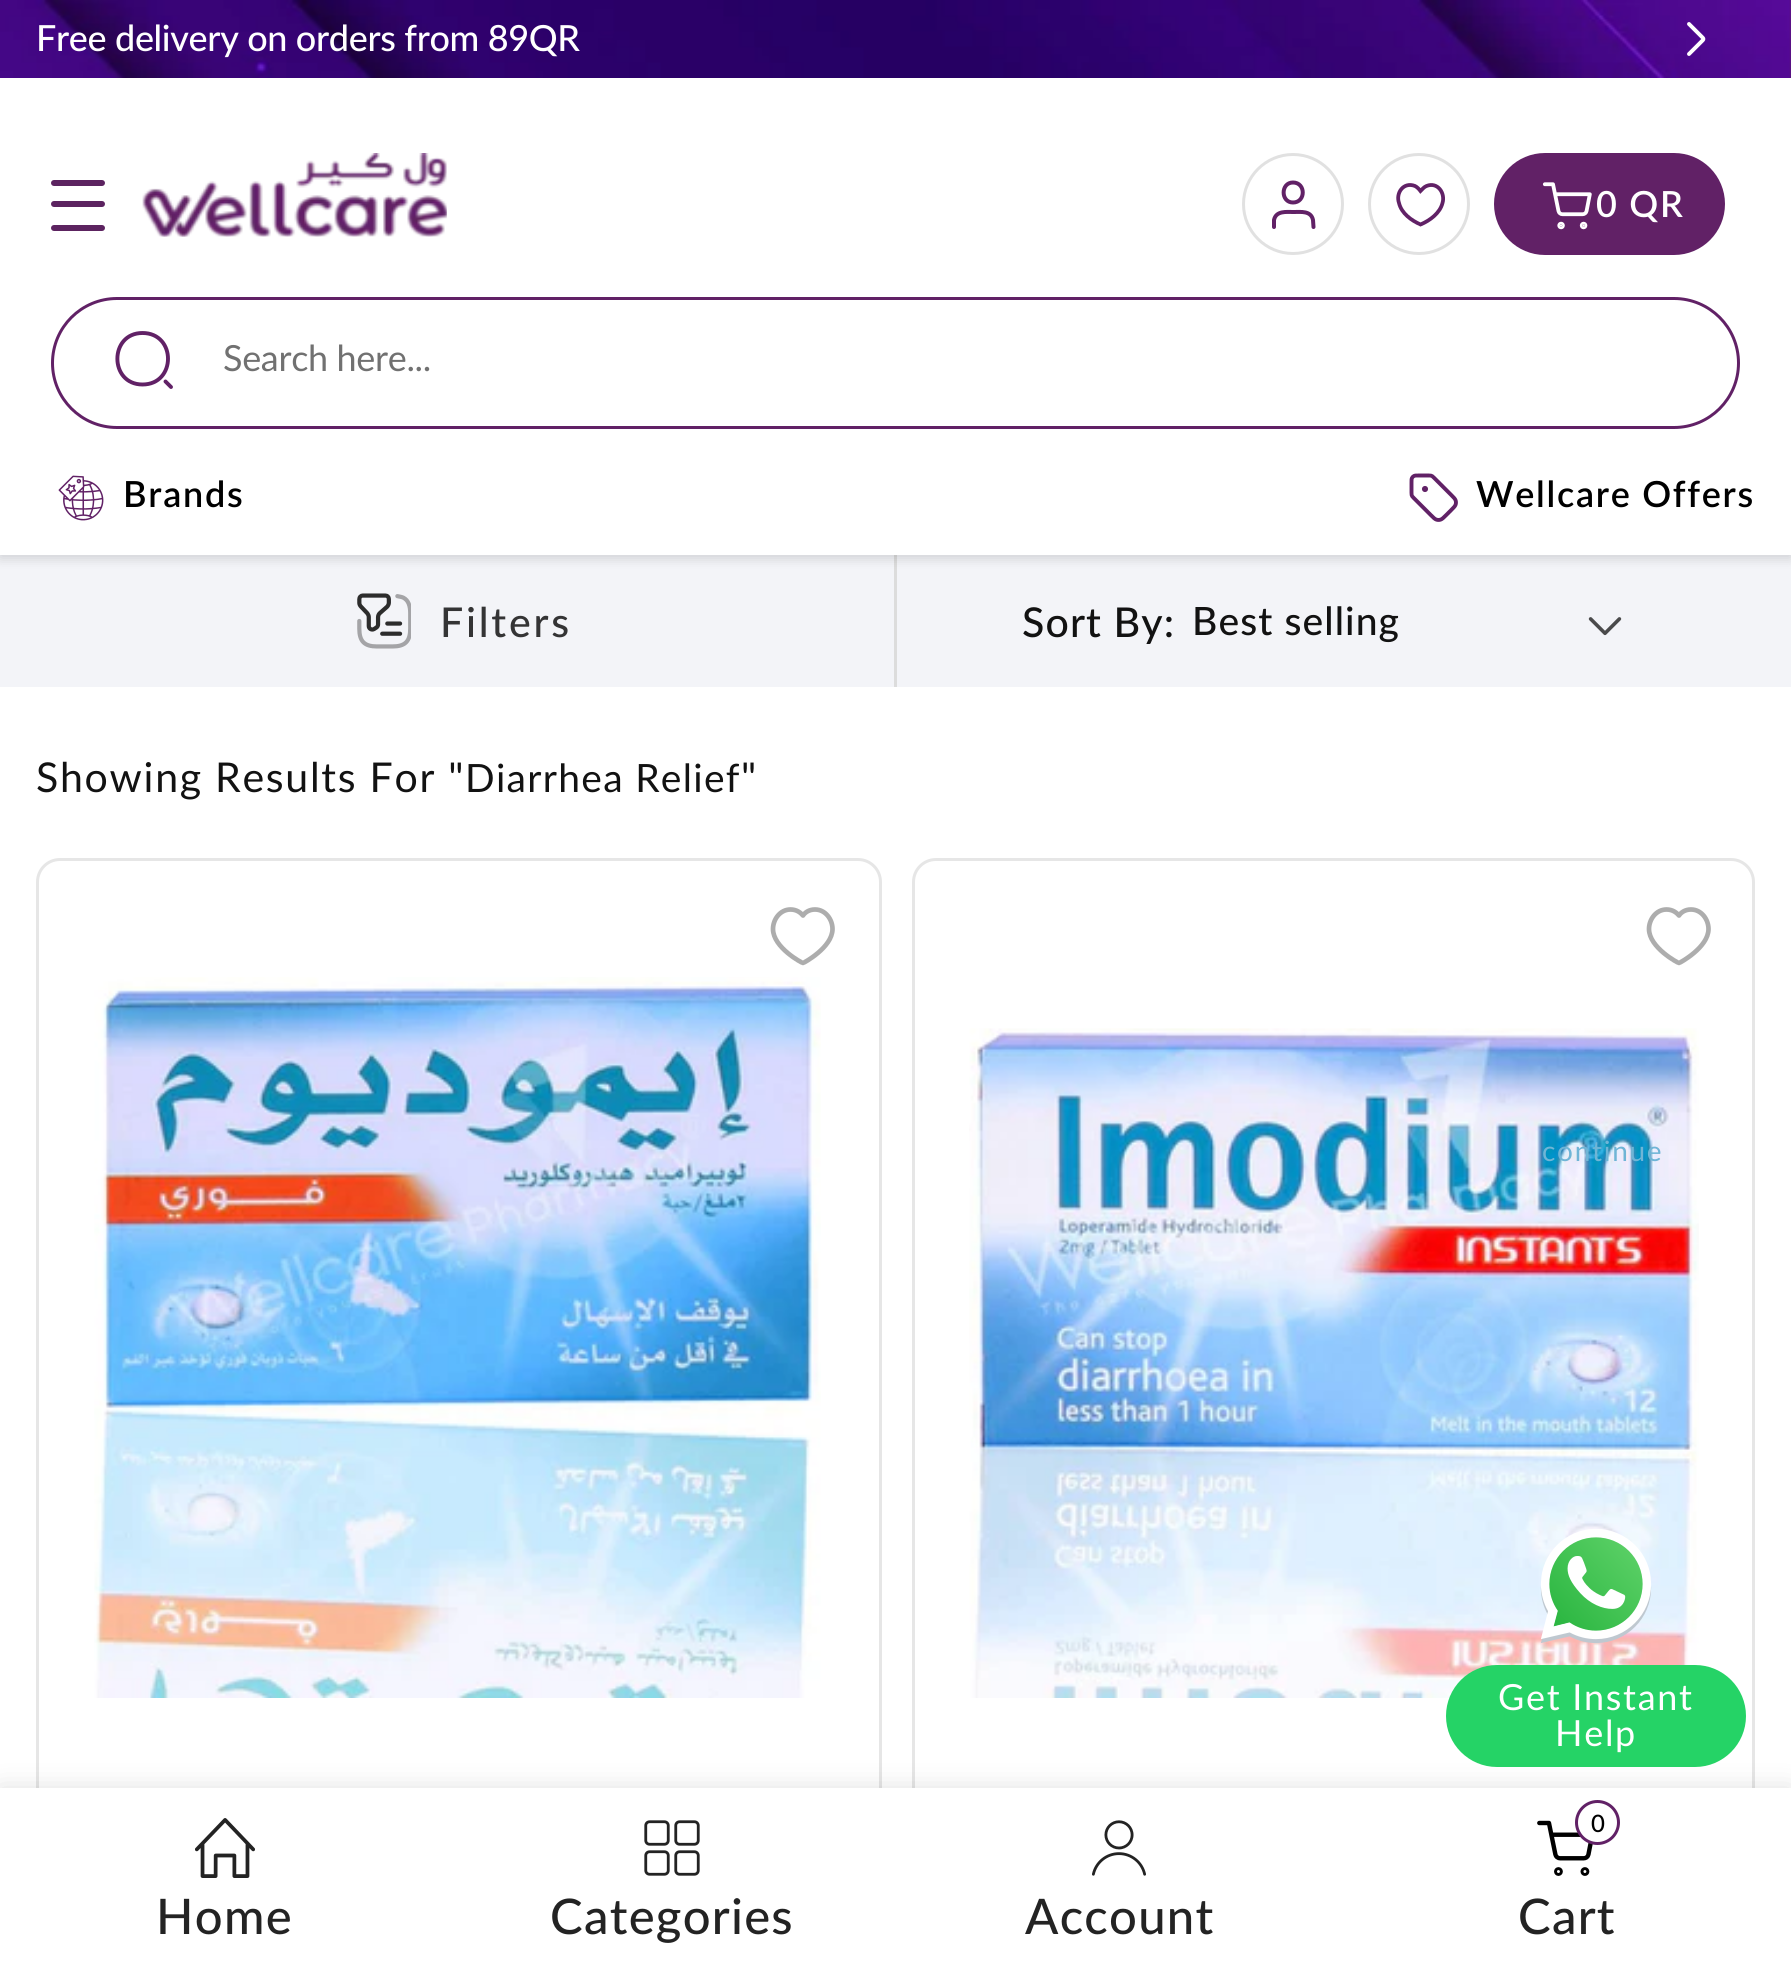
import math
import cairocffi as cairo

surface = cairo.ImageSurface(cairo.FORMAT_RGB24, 1791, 1969)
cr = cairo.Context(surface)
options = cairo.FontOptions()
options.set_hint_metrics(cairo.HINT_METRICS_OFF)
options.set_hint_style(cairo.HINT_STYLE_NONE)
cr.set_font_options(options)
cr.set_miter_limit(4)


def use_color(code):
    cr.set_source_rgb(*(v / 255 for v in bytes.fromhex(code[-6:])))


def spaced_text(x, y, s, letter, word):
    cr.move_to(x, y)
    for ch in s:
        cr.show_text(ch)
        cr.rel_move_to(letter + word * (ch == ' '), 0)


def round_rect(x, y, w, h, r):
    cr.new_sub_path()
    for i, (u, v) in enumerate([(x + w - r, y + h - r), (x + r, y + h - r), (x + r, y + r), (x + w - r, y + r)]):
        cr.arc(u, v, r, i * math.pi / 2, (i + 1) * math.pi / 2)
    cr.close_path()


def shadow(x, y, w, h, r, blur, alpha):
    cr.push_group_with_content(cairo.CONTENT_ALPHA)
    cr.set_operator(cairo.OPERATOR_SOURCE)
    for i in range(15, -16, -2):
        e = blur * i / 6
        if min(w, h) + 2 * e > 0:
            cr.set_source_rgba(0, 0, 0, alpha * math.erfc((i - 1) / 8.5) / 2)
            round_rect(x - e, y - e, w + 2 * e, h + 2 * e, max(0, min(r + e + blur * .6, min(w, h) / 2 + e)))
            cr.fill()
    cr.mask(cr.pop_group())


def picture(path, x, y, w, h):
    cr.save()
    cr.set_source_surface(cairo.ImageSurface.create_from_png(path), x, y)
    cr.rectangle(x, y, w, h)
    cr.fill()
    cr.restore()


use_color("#ffffff")
cr.paint()
use_color("#f3f4f8")
cr.rectangle(0, 555, 1791, 132)
cr.fill()
use_color("#dcdcdc")
cr.rectangle(894, 555, 3, 132)
cr.fill()
use_color("#000000")
shadow(0, 81, 1791, 477, 0, 6, 0.16)
use_color("#612166")
cr.rectangle(1789, 0, 2, 78)
cr.fill()
picture("img1.png", 0, 0, 1791, 78)
cr.select_font_face("Lato Medium")
cr.set_font_size(36)
use_color("#ffffff")
spaced_text(36, 51, "Free delivery on orders from 89QR", -0.35, 0)
cr.new_path()
cr.move_to(1689, 54)
cr.line_to(1703, 40)
cr.curve_to(1703.5, 39.5, 1703.5, 38.5, 1703, 38)
cr.line_to(1689, 24)
cr.set_line_width(3.9)
cr.set_line_cap(cairo.LINE_CAP_ROUND)
cr.stroke()
cr.rectangle(0, 78, 1791, 477)
cr.fill()
use_color("#5c2360")
round_rect(51, 180, 54, 6, 3)
cr.fill()
round_rect(51, 201, 54, 6, 3)
cr.fill()
round_rect(51, 225, 54, 6, 3)
cr.fill()
picture("img2.png", 142, 153, 305, 84)
cr.arc(1293, 204, 49.5, 0, 2 * math.pi)
use_color("#e1e1e1")
cr.set_line_width(3)
cr.set_line_cap(cairo.LINE_CAP_BUTT)
cr.stroke()
cr.new_path()
cr.move_to(1313.5, 227)
cr.line_to(1313, 220)
cr.curve_to(1311, 210.5, 1301, 212, 1293.5, 212)
cr.curve_to(1286.5, 212, 1276, 210.5, 1274, 220)
cr.line_to(1274, 227)
cr.move_to(1293, 202.5)
cr.curve_to(1306, 202.5, 1306, 182.5, 1293, 182.5)
cr.curve_to(1280.5, 182.5, 1280.5, 202.5, 1293, 202.5)
cr.close_path()
use_color("#612166")
cr.set_line_width(4)
cr.set_line_cap(cairo.LINE_CAP_ROUND)
cr.set_line_join(cairo.LINE_JOIN_ROUND)
cr.stroke()
cr.arc(1419, 204, 49.5, 0, 2 * math.pi)
use_color("#e1e1e1")
cr.set_line_width(3)
cr.set_line_cap(cairo.LINE_CAP_BUTT)
cr.set_line_join(cairo.LINE_JOIN_MITER)
cr.stroke()
cr.new_path()
cr.move_to(1420.5, 224.5)
cr.curve_to(1411.5, 220.5, 1401.5, 213.5, 1399, 203)
cr.curve_to(1395.5, 193, 1403.5, 181.5, 1415, 186)
cr.curve_to(1417, 187, 1419, 189, 1420.5, 191)
cr.curve_to(1422.5, 189, 1424, 187, 1426.5, 186)
cr.curve_to(1437.5, 181.5, 1445.5, 193, 1442.5, 203)
cr.curve_to(1440, 213, 1430, 220.5, 1420.5, 224.5)
cr.close_path()
use_color("#612166")
cr.set_line_width(3.8)
cr.stroke()
round_rect(1494, 153, 231, 102, 51)
cr.fill()
picture("img3.png", 1542, 182, 50, 48)
cr.select_font_face("Lato SemiBold")
use_color("#ffffff")
spaced_text(1596, 217, "0 QR", 1.7, 0)
round_rect(52.5, 298.5, 1686, 129, 64.5)
use_color("#612166")
cr.set_line_width(3)
cr.stroke()
cr.new_path()
cr.move_to(142.5, 384.5)
cr.curve_to(176.5, 384.5, 176.5, 333, 142.5, 333)
cr.curve_to(109, 333, 109, 384.5, 142.5, 384.5)
cr.close_path()
cr.move_to(171, 387)
cr.line_to(165.5, 381.5)
cr.set_line_width(3.9)
cr.set_line_cap(cairo.LINE_CAP_ROUND)
cr.set_line_join(cairo.LINE_JOIN_ROUND)
cr.stroke()
cr.select_font_face("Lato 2")
use_color("#717171")
spaced_text(223, 371, "Search here...", -0.35, 0)
picture("img4.png", 58, 475, 46, 46)
cr.select_font_face("Lato SemiBold")
use_color("#000000")
spaced_text(123, 507, "Brands", 1.7, 0)
picture("img5.png", 1409, 473, 49, 49)
spaced_text(1476, 507, "Wellcare Offers", 1.7, 0)
picture("img6.png", 357, 593, 54, 56)
cr.select_font_face("Lato Medium")
cr.set_font_size(41.1)
use_color("#343435")
spaced_text(440, 637, "Filters", 2.75, 0)
use_color("#121212")
spaced_text(1022, 637, "Sort By:", 1.1, 0)
cr.set_font_size(39)
spaced_text(1192, 635, "Best selling", 1.1, 0)
picture("img7.png", 1588, 617, 34, 19)
cr.select_font_face("Lato")
cr.set_font_size(41.1)
spaced_text(36, 792, "Showing Results For \"", 1.7, 0)
cr.set_font_size(39)
spaced_text(465, 792, "Diarrhea Relief", 1.3, 0)
cr.set_font_size(41.1)
spaced_text(741, 792, "\"", 1.7, 0)
round_rect(37.5, 859.5, 843, 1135, 22.5)
use_color("#e6e6e6")
cr.set_line_width(3)
cr.set_line_cap(cairo.LINE_CAP_BUTT)
cr.set_line_join(cairo.LINE_JOIN_MITER)
cr.stroke()
cr.new_path()
cr.move_to(815, 909.5)
cr.curve_to(825.5, 909.5, 832.5, 919.5, 832.5, 929)
cr.curve_to(832.5, 947.5, 803.5, 963, 803, 963)
cr.curve_to(802, 963, 773, 947.5, 773, 929)
cr.curve_to(773, 919.5, 780, 909.5, 790.5, 909.5)
cr.curve_to(796.5, 909.5, 800.5, 912.5, 803, 915.5)
cr.curve_to(805, 912.5, 809, 909.5, 815, 909.5)
cr.close_path()
use_color("#adadad")
cr.set_line_width(4.7)
cr.set_line_cap(cairo.LINE_CAP_ROUND)
cr.set_line_join(cairo.LINE_JOIN_ROUND)
cr.stroke()
picture("img8.png", 94, 977, 727, 721)
round_rect(913.5, 859.5, 840, 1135, 22.5)
use_color("#e6e6e6")
cr.set_line_width(3)
cr.set_line_cap(cairo.LINE_CAP_BUTT)
cr.set_line_join(cairo.LINE_JOIN_MITER)
cr.stroke()
picture("img9.png", 969, 1028, 730, 670)
cr.new_path()
cr.move_to(1691, 909.5)
cr.curve_to(1701.5, 909.5, 1708.5, 919.5, 1708.5, 929)
cr.curve_to(1708.5, 947.5, 1679.5, 963, 1679, 963)
cr.curve_to(1678, 963, 1649, 947.5, 1649, 929)
cr.curve_to(1649, 919.5, 1656, 909.5, 1666.5, 909.5)
cr.curve_to(1672.5, 909.5, 1676.5, 912.5, 1679, 915.5)
cr.curve_to(1681, 912.5, 1685, 909.5, 1691, 909.5)
cr.close_path()
use_color("#adadad")
cr.set_line_width(4.7)
cr.set_line_cap(cairo.LINE_CAP_ROUND)
cr.set_line_join(cairo.LINE_JOIN_ROUND)
cr.stroke()
cr.select_font_face("Lato 2")
cr.set_font_size(28)
use_color("#6fb5d6")
spaced_text(1542, 1161, "continue", 1.7, 0)
picture("img10.png", 1540, 1529, 112, 114)
use_color("#25d366")
round_rect(1446, 1665, 300, 102, 51)
cr.fill()
cr.set_font_size(36)
use_color("#ffffff")
spaced_text(1498, 1710, "Get Instant", 1.7, 0)
spaced_text(1555, 1746, "Help", 1.7, 0)
use_color("#000000")
shadow(0, 1788, 1791, 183, 0, 13.5, 0.12)
use_color("#ffffff")
cr.rectangle(0, 1788, 1791, 181)
cr.fill()
picture("img11.png", 195, 1818, 60, 60)
cr.select_font_face("Lato Medium")
cr.set_font_size(49)
use_color("#232323")
spaced_text(156, 1934, "Home", 1.25, 0)
picture("img12.png", 644, 1820, 56, 56)
spaced_text(550, 1934, "Categories", 1.25, 0)
picture("img13.png", 1092, 1820, 54, 56)
spaced_text(1025, 1934, "Account", 1.25, 0)
picture("img14.png", 1537, 1820, 56, 56)
use_color("#ffffff")
cr.arc(1597.5, 1822.5, 21, 0, 2 * math.pi)
cr.fill_preserve()
use_color("#612166")
cr.set_line_width(3)
cr.set_line_cap(cairo.LINE_CAP_BUTT)
cr.set_line_join(cairo.LINE_JOIN_MITER)
cr.stroke()
cr.set_font_size(24)
use_color("#000000")
spaced_text(1591, 1832, "0", 1.7, 0)
cr.set_font_size(49)
use_color("#232323")
spaced_text(1518, 1934, "Cart", 1.25, 0)
surface.write_to_png("result.png")
